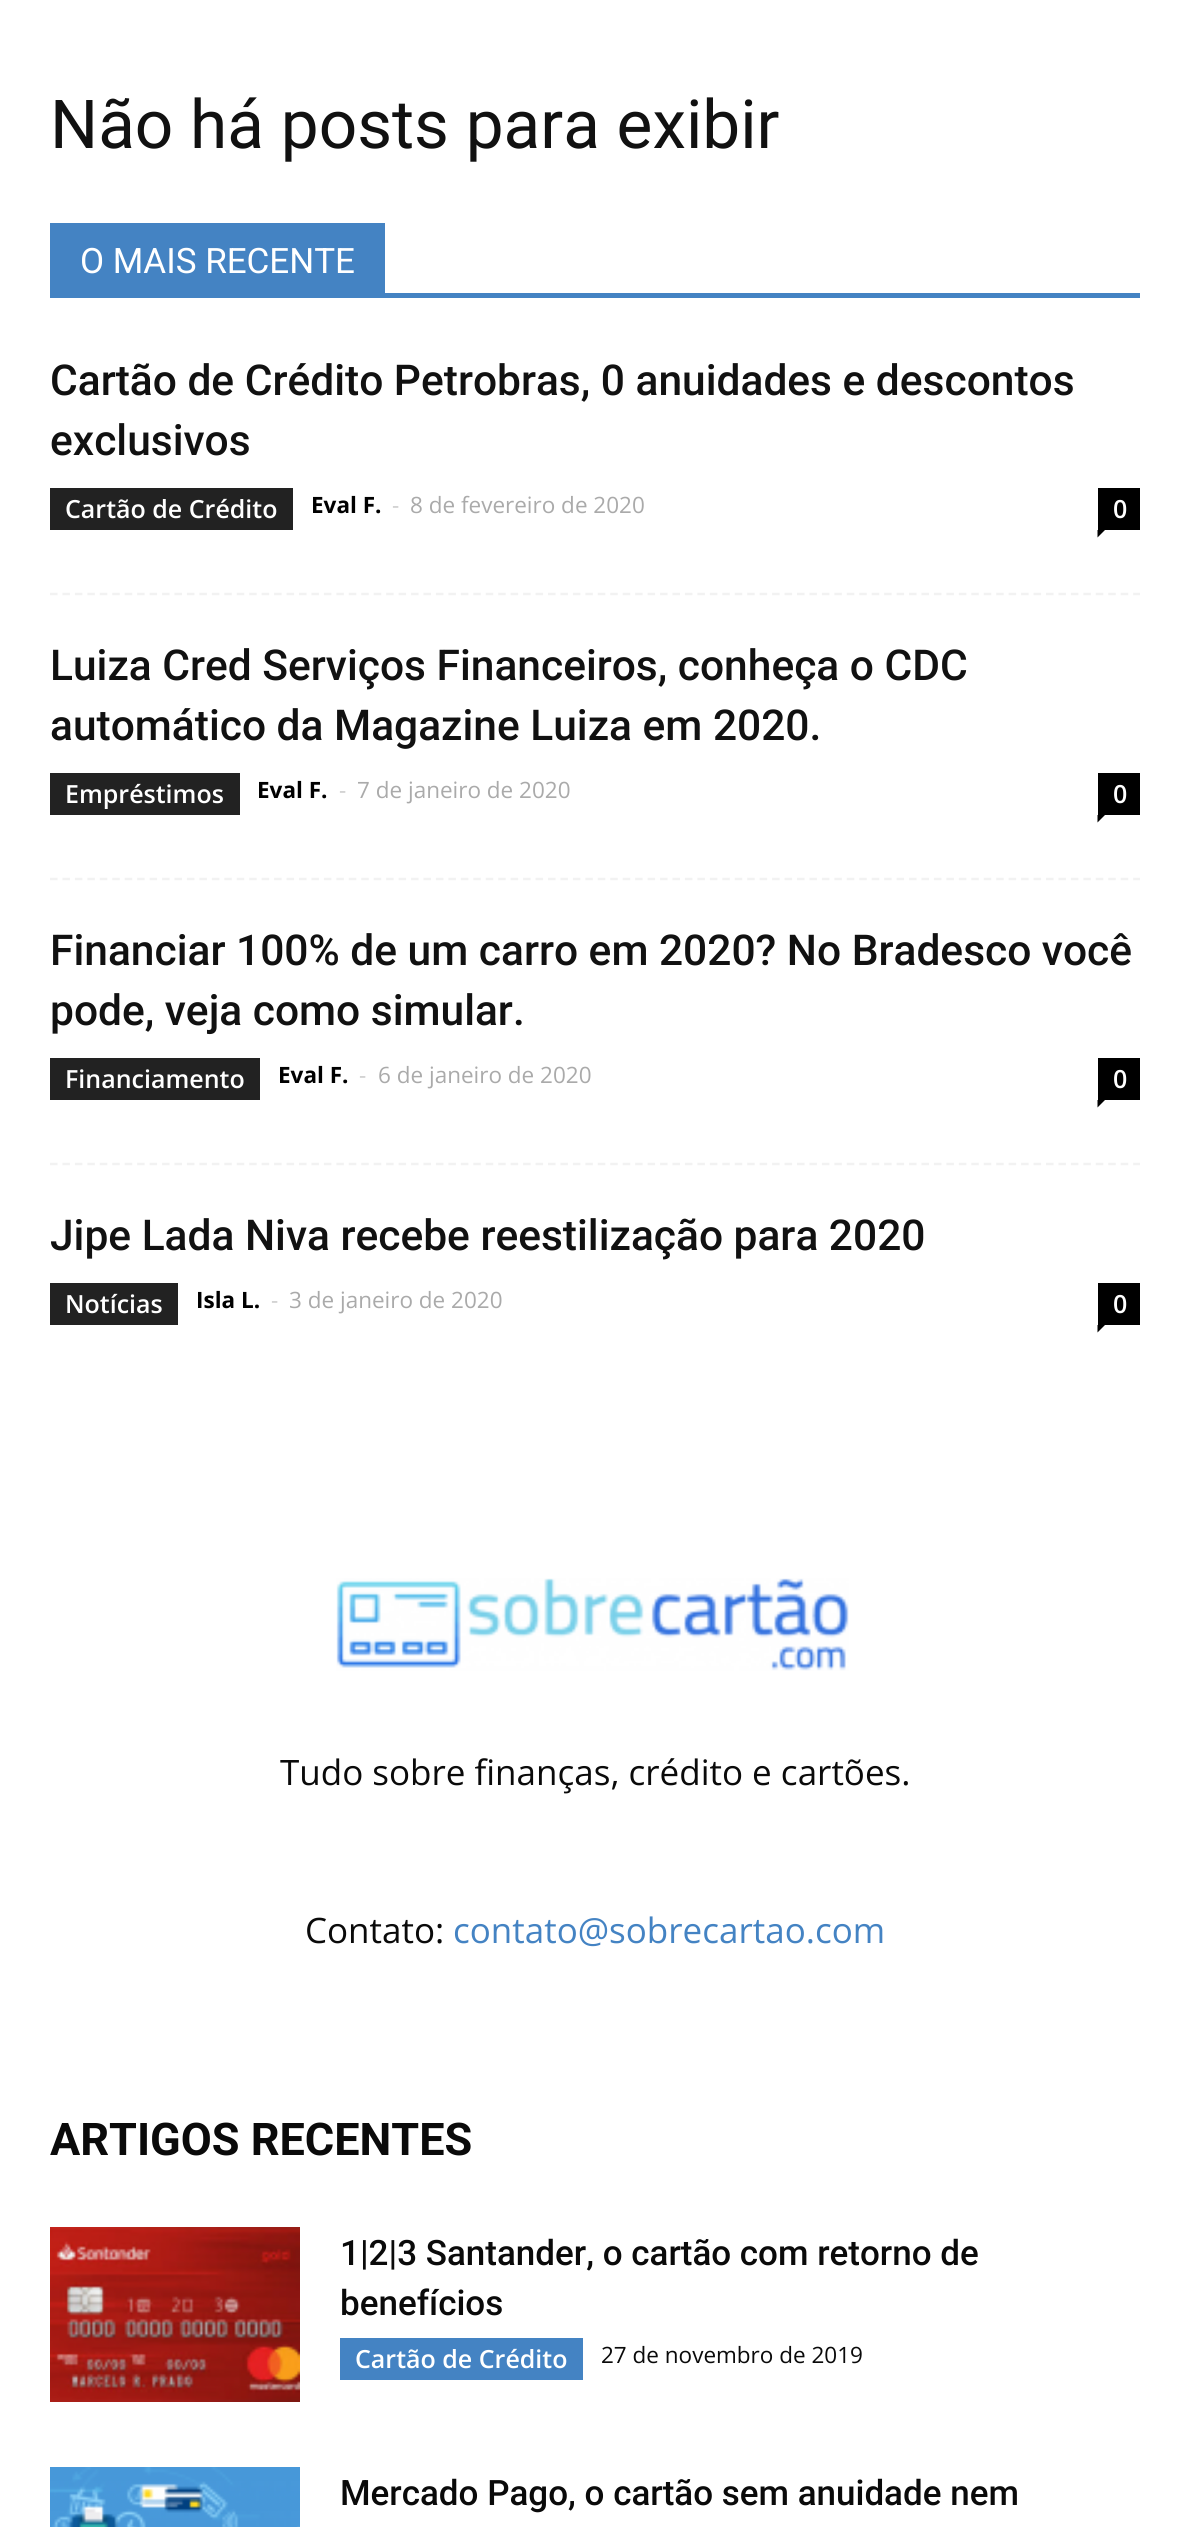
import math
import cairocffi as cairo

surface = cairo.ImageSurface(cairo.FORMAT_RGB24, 1190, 2527)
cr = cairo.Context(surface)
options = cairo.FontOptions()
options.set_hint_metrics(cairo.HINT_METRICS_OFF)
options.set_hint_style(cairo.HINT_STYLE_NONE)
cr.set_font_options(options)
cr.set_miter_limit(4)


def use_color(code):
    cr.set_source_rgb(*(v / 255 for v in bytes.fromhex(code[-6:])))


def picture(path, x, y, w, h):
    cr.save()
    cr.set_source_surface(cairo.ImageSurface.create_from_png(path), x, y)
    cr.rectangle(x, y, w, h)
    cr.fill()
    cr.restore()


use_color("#ffffff")
cr.paint()
cr.select_font_face("Roboto")
cr.set_font_size(67.5)
use_color("#111111")
cr.move_to(50, 148)
cr.show_text("Não há posts para exibir")
use_color("#4483c3")
cr.rectangle(50, 293, 1090, 5)
cr.fill()
cr.rectangle(50, 223, 335, 70)
cr.fill()
cr.set_font_size(35)
use_color("#ffffff")
cr.move_to(80, 273)
cr.show_text("O MAIS RECENTE")
cr.new_path()
cr.move_to(50, 594)
cr.line_to(1140, 594)
use_color("#f2f2f2")
cr.set_line_width(2.5)
cr.set_dash([7.5, 4.95])
cr.stroke()
cr.select_font_face("Roboto Medium")
cr.set_font_size(42.5)
use_color("#111111")
cr.move_to(50, 395)
cr.show_text("Cartão de Crédito Petrobras, 0 anuidades e descontos")
cr.move_to(50, 455)
cr.show_text("exclusivos")
use_color("#222222")
cr.rectangle(50, 488, 243, 42)
cr.fill()
cr.select_font_face("Open Sans SemiBold")
cr.set_font_size(25)
use_color("#ffffff")
cr.move_to(65, 518)
cr.show_text("Cartão de Crédito")
cr.select_font_face("Open Sans", cairo.FONT_SLANT_NORMAL, cairo.FONT_WEIGHT_BOLD)
cr.set_font_size(22.5)
use_color("#000000")
cr.move_to(311, 513)
cr.show_text("Eval F.")
cr.select_font_face("Open Sans")
use_color("#cccccc")
cr.move_to(392, 513)
cr.show_text("-")
use_color("#aaaaaa")
cr.move_to(410, 513)
cr.show_text("8 de fevereiro de 2020")
use_color("#000000")
cr.rectangle(1098, 488, 42, 42)
cr.fill()
cr.select_font_face("Open Sans SemiBold")
cr.set_font_size(25)
use_color("#ffffff")
cr.move_to(1113, 518)
cr.show_text("0")
use_color("#000000")
cr.new_path()
cr.move_to(1097.5, 530)
cr.line_to(1105, 530)
cr.line_to(1097.5, 537.5)
cr.close_path()
cr.fill()
cr.new_path()
cr.move_to(50, 879)
cr.line_to(1140, 879)
use_color("#f2f2f2")
cr.stroke()
cr.select_font_face("Roboto Medium")
cr.set_font_size(42.5)
use_color("#111111")
cr.move_to(50, 680)
cr.show_text("Luiza Cred Serviços Financeiros, conheça o CDC")
cr.move_to(50, 740)
cr.show_text("automático da Magazine Luiza em 2020.")
use_color("#222222")
cr.rectangle(50, 773, 190, 42)
cr.fill()
cr.select_font_face("Open Sans SemiBold")
cr.set_font_size(25)
use_color("#ffffff")
cr.move_to(65, 803)
cr.show_text("Empréstimos")
cr.select_font_face("Open Sans", cairo.FONT_SLANT_NORMAL, cairo.FONT_WEIGHT_BOLD)
cr.set_font_size(22.5)
use_color("#000000")
cr.move_to(257, 798)
cr.show_text("Eval F.")
cr.select_font_face("Open Sans")
use_color("#cccccc")
cr.move_to(339, 798)
cr.show_text("-")
use_color("#aaaaaa")
cr.move_to(357, 798)
cr.show_text("7 de janeiro de 2020")
use_color("#000000")
cr.rectangle(1098, 773, 42, 42)
cr.fill()
cr.select_font_face("Open Sans SemiBold")
cr.set_font_size(25)
use_color("#ffffff")
cr.move_to(1113, 803)
cr.show_text("0")
use_color("#000000")
cr.new_path()
cr.move_to(1097.5, 815)
cr.line_to(1105, 815)
cr.line_to(1097.5, 822.5)
cr.close_path()
cr.fill()
cr.new_path()
cr.move_to(50, 1164)
cr.line_to(1140, 1164)
use_color("#f2f2f2")
cr.stroke()
cr.select_font_face("Roboto Medium")
cr.set_font_size(42.5)
use_color("#111111")
cr.move_to(50, 965)
cr.show_text("Financiar 100% de um carro em 2020? No Bradesco você")
cr.move_to(50, 1025)
cr.show_text("pode, veja como simular.")
use_color("#222222")
cr.rectangle(50, 1058, 210, 42)
cr.fill()
cr.select_font_face("Open Sans SemiBold")
cr.set_font_size(25)
use_color("#ffffff")
cr.move_to(65, 1088)
cr.show_text("Financiamento")
cr.select_font_face("Open Sans", cairo.FONT_SLANT_NORMAL, cairo.FONT_WEIGHT_BOLD)
cr.set_font_size(22.5)
use_color("#000000")
cr.move_to(278, 1083)
cr.show_text("Eval F.")
cr.select_font_face("Open Sans")
use_color("#cccccc")
cr.move_to(359, 1083)
cr.show_text("-")
use_color("#aaaaaa")
cr.move_to(378, 1083)
cr.show_text("6 de janeiro de 2020")
use_color("#000000")
cr.rectangle(1098, 1058, 42, 42)
cr.fill()
cr.select_font_face("Open Sans SemiBold")
cr.set_font_size(25)
use_color("#ffffff")
cr.move_to(1113, 1088)
cr.show_text("0")
use_color("#000000")
cr.new_path()
cr.move_to(1097.5, 1100)
cr.line_to(1105, 1100)
cr.line_to(1097.5, 1107.5)
cr.close_path()
cr.fill()
cr.select_font_face("Roboto Medium")
cr.set_font_size(42.5)
use_color("#111111")
cr.move_to(50, 1250)
cr.show_text("Jipe Lada Niva recebe reestilização para 2020")
use_color("#222222")
cr.rectangle(50, 1283, 128, 42)
cr.fill()
cr.select_font_face("Open Sans SemiBold")
cr.set_font_size(25)
use_color("#ffffff")
cr.move_to(65, 1313)
cr.show_text("Notícias")
cr.select_font_face("Open Sans", cairo.FONT_SLANT_NORMAL, cairo.FONT_WEIGHT_BOLD)
cr.set_font_size(22.5)
use_color("#000000")
cr.move_to(196, 1308)
cr.show_text("Isla L.")
cr.select_font_face("Open Sans")
use_color("#cccccc")
cr.move_to(271, 1308)
cr.show_text("-")
use_color("#aaaaaa")
cr.move_to(289, 1308)
cr.show_text("3 de janeiro de 2020")
use_color("#000000")
cr.rectangle(1098, 1283, 42, 42)
cr.fill()
cr.select_font_face("Open Sans SemiBold")
cr.set_font_size(25)
use_color("#ffffff")
cr.move_to(1113, 1313)
cr.show_text("0")
use_color("#000000")
cr.new_path()
cr.move_to(1097.5, 1325)
cr.line_to(1105, 1325)
cr.line_to(1097.5, 1332.5)
cr.close_path()
cr.fill()
picture("img1.png", 336, 1578, 513, 93)
cr.select_font_face("Open Sans")
cr.set_font_size(35)
use_color("#0a0a0a")
cr.move_to(280, 1785)
cr.show_text("Tudo sobre finanças, crédito e cartões.")
cr.move_to(305, 1943)
cr.show_text("Contato:")
use_color("#4483c3")
cr.move_to(453, 1943)
cr.show_text("contato@sobrecartao.com")
cr.select_font_face("Roboto", cairo.FONT_SLANT_NORMAL, cairo.FONT_WEIGHT_BOLD)
cr.set_font_size(45)
use_color("#0a0a0a")
cr.move_to(50, 2155)
cr.show_text("ARTIGOS RECENTES")
picture("img2.png", 50, 2227, 250, 175)
cr.select_font_face("Roboto Medium")
cr.set_font_size(35)
cr.move_to(340, 2265)
cr.show_text("1|2|3 Santander, o cartão com retorno de")
cr.move_to(340, 2315)
cr.show_text("benefícios")
use_color("#4483c3")
cr.rectangle(340, 2338, 243, 42)
cr.fill()
cr.select_font_face("Open Sans SemiBold")
cr.set_font_size(25)
use_color("#ffffff")
cr.move_to(355, 2368)
cr.show_text("Cartão de Crédito")
cr.select_font_face("Open Sans")
cr.set_font_size(22.5)
use_color("#0a0a0a")
cr.move_to(601, 2363)
cr.show_text("27 de novembro de 2019")
picture("img3.png", 50, 2467, 250, 60)
cr.select_font_face("Roboto Medium")
cr.set_font_size(35)
cr.move_to(340, 2505)
cr.show_text("Mercado Pago, o cartão sem anuidade nem")
surface.write_to_png("result.png")
